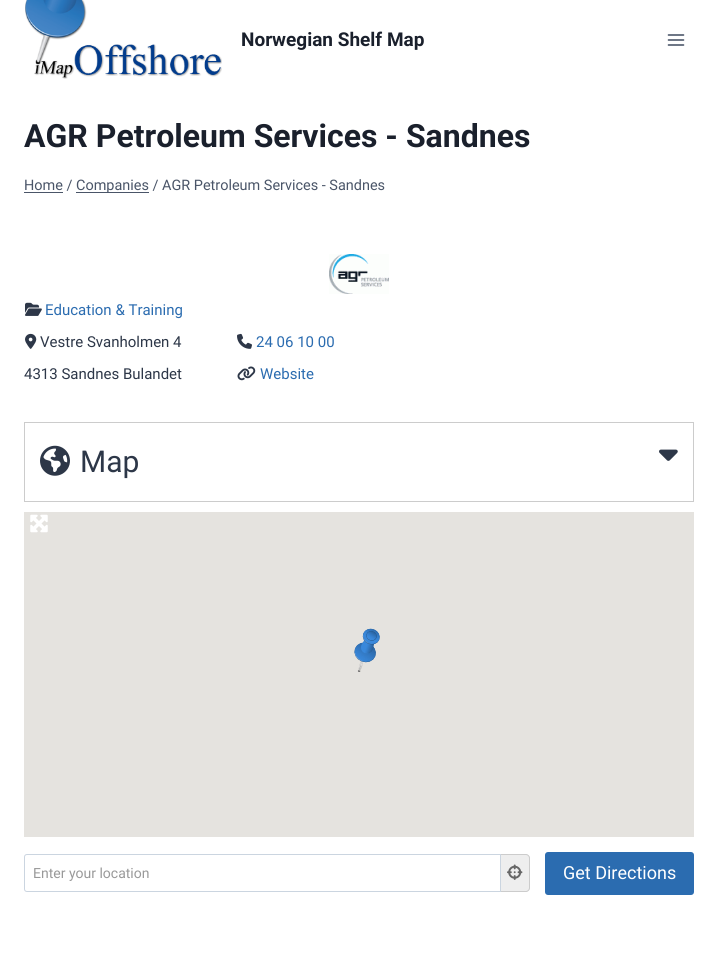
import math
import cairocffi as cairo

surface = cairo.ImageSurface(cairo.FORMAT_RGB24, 718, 966)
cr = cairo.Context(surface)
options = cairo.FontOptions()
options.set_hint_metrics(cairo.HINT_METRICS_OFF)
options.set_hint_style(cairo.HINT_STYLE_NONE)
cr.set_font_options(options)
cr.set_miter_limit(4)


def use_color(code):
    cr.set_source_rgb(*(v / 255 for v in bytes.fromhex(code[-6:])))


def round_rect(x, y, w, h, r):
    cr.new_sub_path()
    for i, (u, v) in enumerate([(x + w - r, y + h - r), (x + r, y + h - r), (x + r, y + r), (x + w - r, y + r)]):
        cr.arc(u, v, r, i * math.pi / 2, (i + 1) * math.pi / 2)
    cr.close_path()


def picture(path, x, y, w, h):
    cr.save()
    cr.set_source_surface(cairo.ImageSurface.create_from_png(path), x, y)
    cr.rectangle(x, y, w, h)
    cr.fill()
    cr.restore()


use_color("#ffffff")
cr.paint()
picture("img1.png", 25, 0, 197, 79)
cr.select_font_face("Roboto", cairo.FONT_SLANT_NORMAL, cairo.FONT_WEIGHT_BOLD)
cr.set_font_size(19)
use_color("#1a202c")
cr.move_to(241, 46)
cr.show_text("Norwegian Shelf Map")
picture("img2.png", 667, 34, 18, 12)
cr.set_font_size(32)
cr.move_to(24, 147)
cr.show_text("AGR Petroleum Services - Sandnes")
cr.select_font_face("Roboto")
cr.set_font_size(14.45)
use_color("#4a5568")
cr.move_to(24, 190)
cr.show_text("Home /")
cr.rectangle(24, 192, 39, 1)
cr.fill()
cr.rectangle(76, 192, 73, 1)
cr.fill()
cr.move_to(76, 190)
cr.show_text("Companies / AGR Petroleum Services - Sandnes")
picture("img3.png", 329, 254, 60, 40)
picture("img4.png", 25, 302, 17, 14)
cr.set_font_size(15)
use_color("#2b6cb0")
cr.move_to(45, 315)
cr.show_text("Education & Training")
picture("img5.png", 25, 333, 12, 16)
use_color("#2d3748")
cr.move_to(40, 347)
cr.show_text("Vestre Svanholmen 4")
cr.move_to(24, 379)
cr.show_text("4313 Sandnes Bulandet")
picture("img6.png", 237, 333, 15, 16)
use_color("#2b6cb0")
cr.move_to(256, 347)
cr.show_text("24 06 10 00")
picture("img7.png", 237, 366, 19, 15)
cr.move_to(260, 379)
cr.show_text("Website")
cr.rectangle(24.5, 422.5, 669, 79)
use_color("#cccccc")
cr.set_line_width(1)
cr.stroke()
picture("img8.png", 40, 445, 30, 31)
cr.set_font_size(30)
use_color("#2d3748")
cr.move_to(80, 472)
cr.show_text("Map")
picture("img9.png", 659, 449, 19, 12)
use_color("#e5e3df")
cr.rectangle(24, 512, 670, 325)
cr.fill()
picture("img10.png", 354, 628, 26, 44)
picture("img11.png", 30, 514, 18, 19)
cr.new_path()
cr.move_to(27, 854.5)
cr.line_to(500.5, 854.5)
cr.line_to(500.5, 891.5)
cr.line_to(27, 891.5)
cr.curve_to(25.5, 891.5, 24.5, 890.5, 24.5, 889)
cr.line_to(24.5, 857)
cr.curve_to(24.5, 855.5, 25.5, 854.5, 27, 854.5)
cr.close_path()
use_color("#cbd5e0")
cr.stroke()
cr.set_font_size(14)
use_color("#999999")
cr.move_to(33, 878)
cr.show_text("Enter your location")
use_color("#eeeeee")
cr.new_path()
cr.move_to(501, 854)
cr.line_to(526, 854)
cr.curve_to(528, 854, 530, 856, 530, 858)
cr.line_to(530, 888)
cr.curve_to(530, 890, 528, 892, 526, 892)
cr.line_to(501, 892)
cr.close_path()
cr.fill()
use_color("#cccccc")
cr.set_fill_rule(cairo.FILL_RULE_EVEN_ODD)
cr.new_path()
cr.move_to(501, 854)
cr.line_to(526, 854)
cr.curve_to(528, 854, 530, 856, 530, 858)
cr.line_to(530, 888)
cr.curve_to(530, 890, 528, 892, 526, 892)
cr.line_to(501, 892)
cr.close_path()
cr.move_to(501, 855)
cr.line_to(526, 855)
cr.curve_to(527.5, 855, 529, 856.5, 529, 858)
cr.line_to(529, 888)
cr.curve_to(529, 889.5, 527.5, 891, 526, 891)
cr.line_to(501, 891)
cr.close_path()
cr.fill()
picture("img12.png", 507, 864, 16, 16)
use_color("#2b6cb0")
round_rect(545, 852, 149, 43, 3)
cr.fill()
cr.set_font_size(18)
use_color("#ffffff")
cr.move_to(563, 879)
cr.show_text("Get Directions")
surface.write_to_png("result.png")
